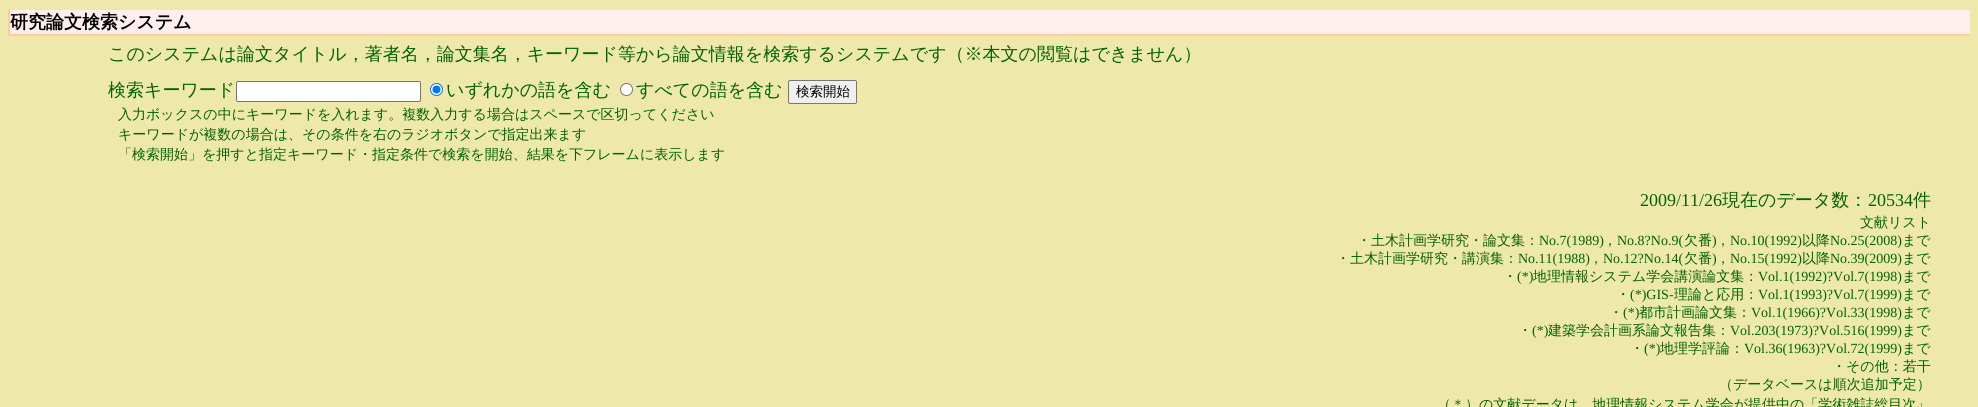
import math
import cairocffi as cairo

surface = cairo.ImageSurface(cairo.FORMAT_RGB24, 1978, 407)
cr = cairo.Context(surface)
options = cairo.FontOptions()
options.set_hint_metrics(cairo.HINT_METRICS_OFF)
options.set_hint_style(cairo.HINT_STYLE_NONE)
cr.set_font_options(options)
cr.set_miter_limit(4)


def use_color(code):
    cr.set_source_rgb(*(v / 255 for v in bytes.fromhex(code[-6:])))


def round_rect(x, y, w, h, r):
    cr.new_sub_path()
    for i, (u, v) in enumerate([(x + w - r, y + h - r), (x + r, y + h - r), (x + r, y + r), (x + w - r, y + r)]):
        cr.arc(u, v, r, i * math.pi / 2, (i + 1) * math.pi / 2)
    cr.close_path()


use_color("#eee8aa")
cr.paint()
use_color("#ffeeee")
cr.rectangle(10, 10, 1960, 24)
cr.fill()
use_color("#ffcc99")
cr.rectangle(8, 34, 1962, 2)
cr.fill()
cr.rectangle(8, 10, 2, 26)
cr.fill()
cr.select_font_face("WenQuanYi Zen Hei", cairo.FONT_SLANT_NORMAL, cairo.FONT_WEIGHT_BOLD)
cr.set_font_size(18)
use_color("#000000")
cr.move_to(10, 28)
cr.show_text("研究論文検索システム")
cr.select_font_face("WenQuanYi Zen Hei Medium")
use_color("#006400")
cr.move_to(108, 60)
cr.show_text("このシステムは論文タイトル，著者名，論文集名，キーワード等から論文情報を検索するシステムです（※本文の閲覧はできません）")
cr.move_to(108, 96)
cr.show_text("検索キーワード")
use_color("#ffffff")
round_rect(236.5, 81.5, 184, 20, 1.5)
cr.fill_preserve()
use_color("#767676")
cr.set_line_width(1)
cr.stroke()
use_color("#ffffff")
cr.arc(436.5, 89.5, 6, 0, 2 * math.pi)
cr.fill_preserve()
use_color("#0075ff")
cr.stroke()
cr.arc(436.5, 89.5, 4, 0, 2 * math.pi)
cr.fill()
use_color("#006400")
cr.move_to(446, 96)
cr.show_text("いずれかの語を含む")
use_color("#ffffff")
cr.new_path()
cr.arc(626.5, 89.5, 6, 0, 2 * math.pi)
cr.fill_preserve()
use_color("#767676")
cr.stroke()
use_color("#006400")
cr.move_to(636, 96)
cr.show_text("すべての語を含む")
use_color("#efefef")
round_rect(788.5, 80.5, 68, 23, 1.5)
cr.fill_preserve()
use_color("#767676")
cr.stroke()
cr.set_font_size(13.5)
use_color("#000000")
cr.move_to(796, 96)
cr.show_text("検索開始")
cr.set_font_size(14)
use_color("#006400")
cr.move_to(118, 119)
cr.show_text("入力ボックスの中にキーワードを入れます。複数入力する場合はスペースで区切ってください")
cr.move_to(118, 139)
cr.show_text("キーワードが複数の場合は、その条件を右のラジオボタンで指定出来ます")
cr.move_to(118, 159)
cr.show_text("「検索開始」を押すと指定キーワード・指定条件で検索を開始、結果を下フレームに表示します")
cr.select_font_face("Liberation Serif")
cr.set_font_size(18)
cr.move_to(1640, 206)
cr.show_text("2009/11/26")
cr.select_font_face("WenQuanYi Zen Hei Medium")
cr.move_to(1722, 206)
cr.show_text("現在のデータ数：")
cr.select_font_face("Liberation Serif")
cr.move_to(1868, 206)
cr.show_text("20534")
cr.select_font_face("WenQuanYi Zen Hei Medium")
cr.move_to(1913, 206)
cr.show_text("件")
cr.set_font_size(14)
cr.move_to(1860, 227)
cr.show_text("文献リスト")
cr.move_to(1357, 245)
cr.show_text("・土木計画学研究・論文集：")
cr.select_font_face("Liberation Serif")
cr.move_to(1539, 245)
cr.show_text("No.7(1989)")
cr.select_font_face("WenQuanYi Zen Hei Medium")
cr.move_to(1603, 245)
cr.show_text("，")
cr.select_font_face("Liberation Serif")
cr.move_to(1617, 245)
cr.show_text("No.8?No.9(")
cr.select_font_face("WenQuanYi Zen Hei Medium")
cr.move_to(1684, 245)
cr.show_text("欠番")
cr.select_font_face("Liberation Serif")
cr.move_to(1712, 245)
cr.show_text(")")
cr.select_font_face("WenQuanYi Zen Hei Medium")
cr.move_to(1716, 245)
cr.show_text("，")
cr.select_font_face("Liberation Serif")
cr.move_to(1730, 245)
cr.show_text("No.10(1992)")
cr.select_font_face("WenQuanYi Zen Hei Medium")
cr.move_to(1802, 245)
cr.show_text("以降")
cr.select_font_face("Liberation Serif")
cr.move_to(1830, 245)
cr.show_text("No.25(2008)")
cr.select_font_face("WenQuanYi Zen Hei Medium")
cr.move_to(1902, 245)
cr.show_text("まで")
cr.move_to(1336, 263)
cr.show_text("・土木計画学研究・講演集：")
cr.select_font_face("Liberation Serif")
cr.move_to(1518, 263)
cr.show_text("No.11(1988)")
cr.select_font_face("WenQuanYi Zen Hei Medium")
cr.move_to(1589, 263)
cr.show_text("，")
cr.select_font_face("Liberation Serif")
cr.move_to(1603, 263)
cr.show_text("No.12?No.14(")
cr.select_font_face("WenQuanYi Zen Hei Medium")
cr.move_to(1684, 263)
cr.show_text("欠番")
cr.select_font_face("Liberation Serif")
cr.move_to(1712, 263)
cr.show_text(")")
cr.select_font_face("WenQuanYi Zen Hei Medium")
cr.move_to(1716, 263)
cr.show_text("，")
cr.select_font_face("Liberation Serif")
cr.move_to(1730, 263)
cr.show_text("No.15(1992)")
cr.select_font_face("WenQuanYi Zen Hei Medium")
cr.move_to(1802, 263)
cr.show_text("以降")
cr.select_font_face("Liberation Serif")
cr.move_to(1830, 263)
cr.show_text("No.39(2009)")
cr.select_font_face("WenQuanYi Zen Hei Medium")
cr.move_to(1902, 263)
cr.show_text("まで")
cr.move_to(1503, 281)
cr.show_text("・")
cr.select_font_face("Liberation Serif")
cr.move_to(1517, 281)
cr.show_text("(*)")
cr.select_font_face("WenQuanYi Zen Hei Medium")
cr.move_to(1533, 281)
cr.show_text("地理情報システム学会講演論文集：")
cr.select_font_face("Liberation Serif")
cr.move_to(1758, 281)
cr.show_text("Vol.1(1992)?Vol.7(1998)")
cr.select_font_face("WenQuanYi Zen Hei Medium")
cr.move_to(1902, 281)
cr.show_text("まで")
cr.move_to(1616, 299)
cr.show_text("・")
cr.select_font_face("Liberation Serif")
cr.move_to(1630, 299)
cr.show_text("(*)GIS-")
cr.select_font_face("WenQuanYi Zen Hei Medium")
cr.move_to(1674, 299)
cr.show_text("理論と応用：")
cr.select_font_face("Liberation Serif")
cr.move_to(1758, 299)
cr.show_text("Vol.1(1993)?Vol.7(1999)")
cr.select_font_face("WenQuanYi Zen Hei Medium")
cr.move_to(1902, 299)
cr.show_text("まで")
cr.move_to(1609, 317)
cr.show_text("・")
cr.select_font_face("Liberation Serif")
cr.move_to(1623, 317)
cr.show_text("(*)")
cr.select_font_face("WenQuanYi Zen Hei Medium")
cr.move_to(1639, 317)
cr.show_text("都市計画論文集：")
cr.select_font_face("Liberation Serif")
cr.move_to(1751, 317)
cr.show_text("Vol.1(1966)?Vol.33(1998)")
cr.select_font_face("WenQuanYi Zen Hei Medium")
cr.move_to(1902, 317)
cr.show_text("まで")
cr.move_to(1518, 335)
cr.show_text("・")
cr.select_font_face("Liberation Serif")
cr.move_to(1532, 335)
cr.show_text("(*)")
cr.select_font_face("WenQuanYi Zen Hei Medium")
cr.move_to(1548, 335)
cr.show_text("建築学会計画系論文報告集：")
cr.select_font_face("Liberation Serif")
cr.move_to(1730, 335)
cr.show_text("Vol.203(1973)?Vol.516(1999)")
cr.select_font_face("WenQuanYi Zen Hei Medium")
cr.move_to(1902, 335)
cr.show_text("まで")
cr.move_to(1630, 353)
cr.show_text("・")
cr.select_font_face("Liberation Serif")
cr.move_to(1644, 353)
cr.show_text("(*)")
cr.select_font_face("WenQuanYi Zen Hei Medium")
cr.move_to(1660, 353)
cr.show_text("地理学評論：")
cr.select_font_face("Liberation Serif")
cr.move_to(1744, 353)
cr.show_text("Vol.36(1963)?Vol.72(1999)")
cr.select_font_face("WenQuanYi Zen Hei Medium")
cr.move_to(1902, 353)
cr.show_text("まで")
cr.move_to(1832, 371)
cr.show_text("・その他：若干")
cr.move_to(1719, 389)
cr.show_text("（データベースは順次追加予定）")
cr.move_to(1437, 409)
cr.show_text("（＊）の文献データは，地理情報システム学会が提供中の「学術雑誌総目次」")
surface.write_to_png("result.png")
